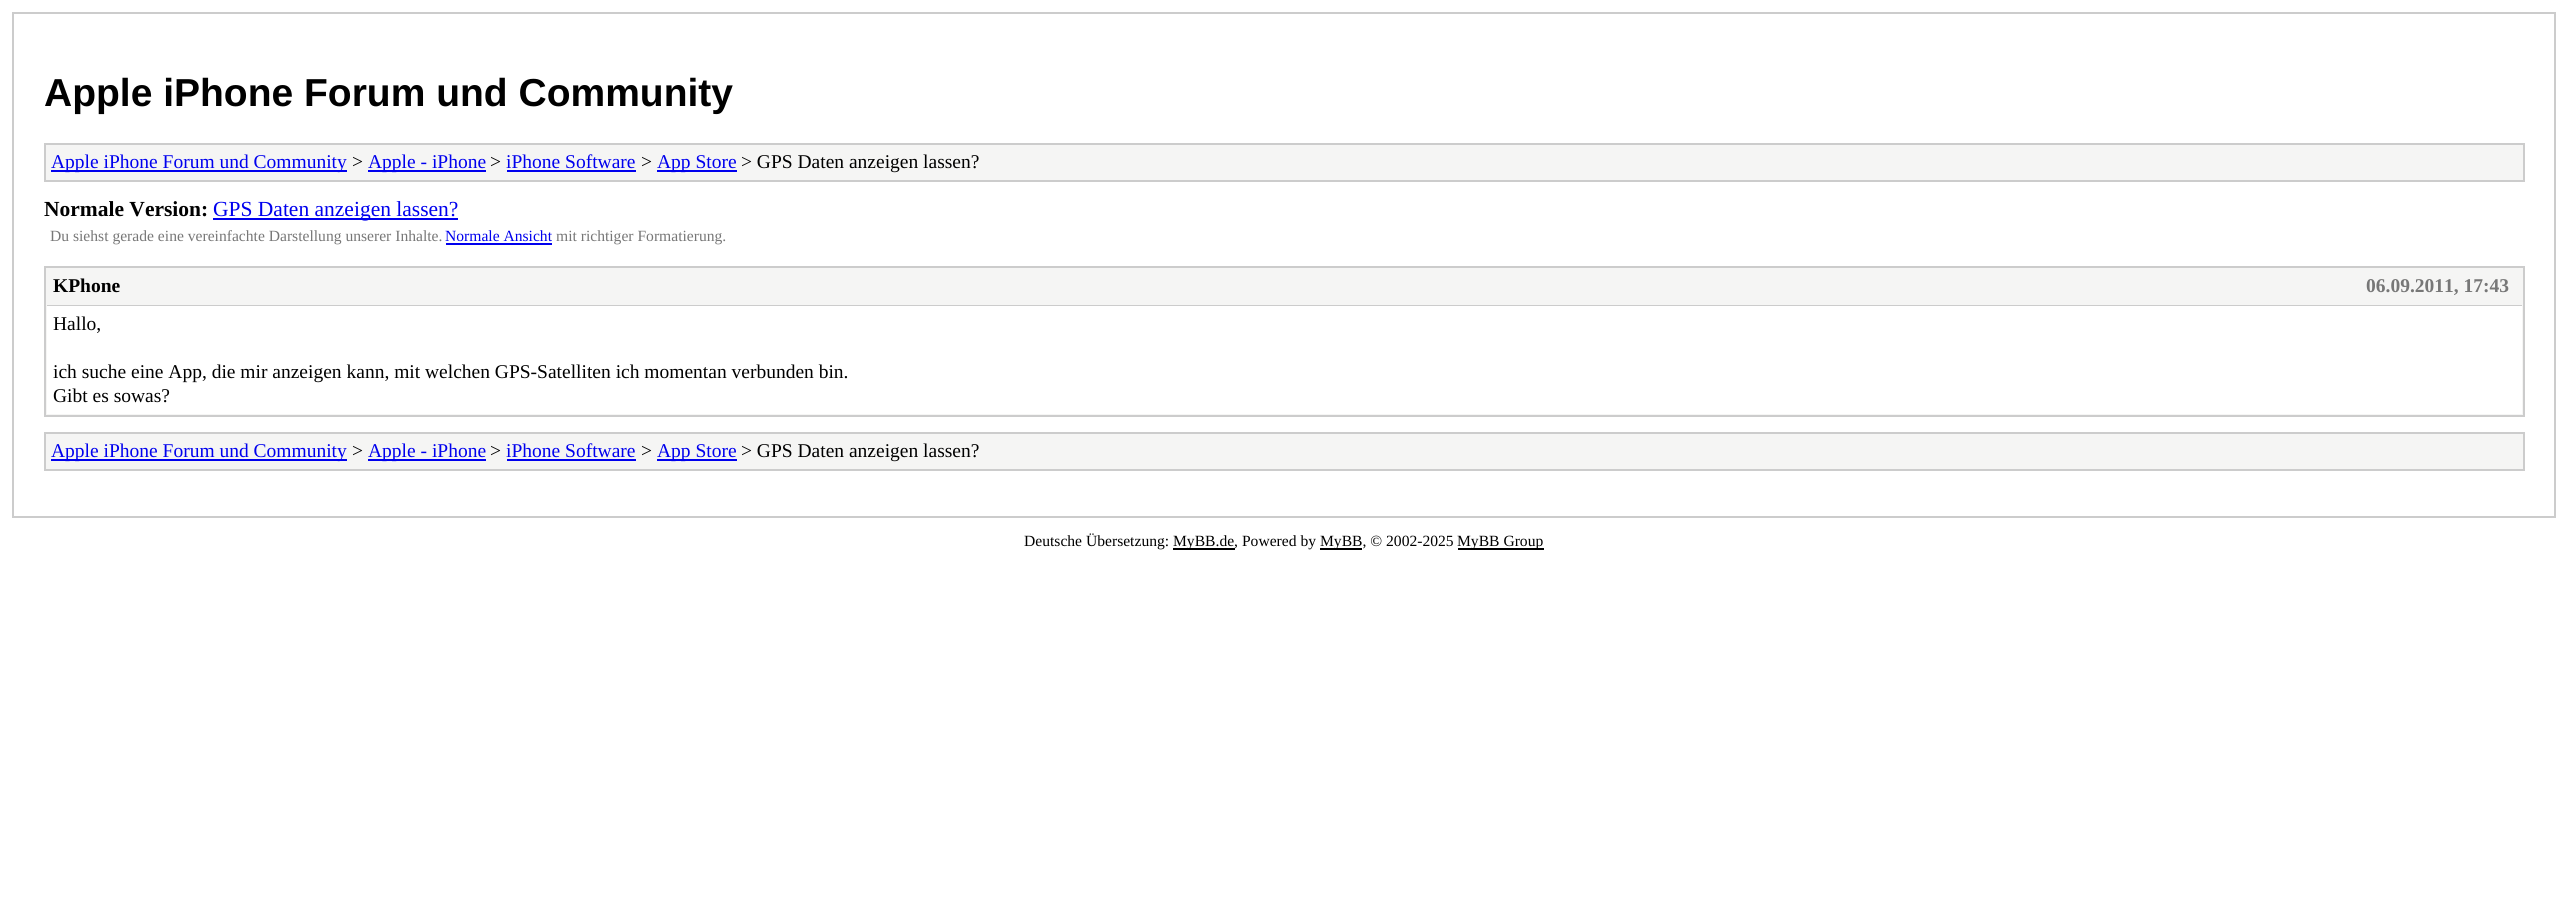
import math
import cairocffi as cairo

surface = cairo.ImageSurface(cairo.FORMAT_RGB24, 2568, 906)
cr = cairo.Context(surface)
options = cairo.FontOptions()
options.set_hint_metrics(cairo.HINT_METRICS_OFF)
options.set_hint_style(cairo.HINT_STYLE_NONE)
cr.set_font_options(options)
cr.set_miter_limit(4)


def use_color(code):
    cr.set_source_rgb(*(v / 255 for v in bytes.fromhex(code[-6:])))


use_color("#ffffff")
cr.paint()
cr.rectangle(13, 13, 2542, 504)
use_color("#cccccc")
cr.stroke()
cr.select_font_face("Liberation Sans", cairo.FONT_SLANT_NORMAL, cairo.FONT_WEIGHT_BOLD)
cr.set_font_size(39)
use_color("#000000")
cr.move_to(44, 106)
cr.show_text("Apple iPhone Forum und Community")
use_color("#f5f5f4")
cr.rectangle(45, 144, 2479, 37)
cr.fill_preserve()
use_color("#cccccc")
cr.stroke()
use_color("#0000ee")
cr.rectangle(51, 170, 296, 2)
cr.fill()
cr.select_font_face("Liberation Serif")
cr.set_font_size(19.5)
cr.move_to(51, 168)
cr.show_text("Apple iPhone Forum und Community")
use_color("#000000")
cr.move_to(352, 168)
cr.show_text(">")
use_color("#0000ee")
cr.rectangle(368, 170, 118, 2)
cr.fill()
cr.move_to(368, 168)
cr.show_text("Apple - iPhone")
use_color("#000000")
cr.move_to(490, 168)
cr.show_text(">")
use_color("#0000ee")
cr.move_to(506, 168)
cr.show_text("iPhone Software")
cr.rectangle(507, 170, 129, 2)
cr.fill()
use_color("#000000")
cr.move_to(641, 168)
cr.show_text(">")
use_color("#0000ee")
cr.rectangle(657, 170, 80, 2)
cr.fill()
cr.move_to(657, 168)
cr.show_text("App Store")
use_color("#000000")
cr.move_to(741, 168)
cr.show_text("> GPS Daten anzeigen lassen?")
cr.select_font_face("Liberation Serif", cairo.FONT_SLANT_NORMAL, cairo.FONT_WEIGHT_BOLD)
cr.set_font_size(21.5)
cr.move_to(44, 216)
cr.show_text("Normale Version:")
use_color("#0000ee")
cr.rectangle(213, 218, 245, 2)
cr.fill()
cr.select_font_face("Liberation Serif")
cr.move_to(213, 216)
cr.show_text("GPS Daten anzeigen lassen?")
cr.set_font_size(15.6)
use_color("#777777")
cr.move_to(50, 241)
cr.show_text("Du siehst gerade eine vereinfachte Darstellung unserer Inhalte.")
use_color("#0000ee")
cr.move_to(445, 241)
cr.show_text("Normale Ansicht")
cr.rectangle(446, 243, 106, 2)
cr.fill()
use_color("#777777")
cr.move_to(556, 241)
cr.show_text("mit richtiger Formatierung.")
use_color("#f5f5f4")
cr.rectangle(45, 267, 2479, 149)
cr.fill_preserve()
use_color("#cccccc")
cr.stroke()
cr.rectangle(47, 305, 2475, 1)
cr.fill()
cr.select_font_face("Liberation Serif", cairo.FONT_SLANT_NORMAL, cairo.FONT_WEIGHT_BOLD)
cr.set_font_size(19.5)
use_color("#000000")
cr.move_to(53, 292)
cr.show_text("KPhone")
use_color("#777777")
cr.move_to(2366, 292)
cr.show_text("06.09.2011, 17:43")
use_color("#ffffff")
cr.rectangle(47, 306, 2475, 108)
cr.fill()
cr.select_font_face("Liberation Serif")
use_color("#000000")
cr.move_to(53, 330)
cr.show_text("Hallo,")
cr.move_to(53, 378)
cr.show_text("ich suche eine App, die mir anzeigen kann, mit welchen GPS-Satelliten ich momentan verbunden bin.")
cr.move_to(53, 402)
cr.show_text("Gibt es sowas?")
use_color("#f5f5f4")
cr.rectangle(45, 433, 2479, 37)
cr.fill_preserve()
use_color("#cccccc")
cr.stroke()
use_color("#0000ee")
cr.rectangle(51, 459, 296, 2)
cr.fill()
cr.move_to(51, 457)
cr.show_text("Apple iPhone Forum und Community")
use_color("#000000")
cr.move_to(352, 457)
cr.show_text(">")
use_color("#0000ee")
cr.rectangle(368, 459, 118, 2)
cr.fill()
cr.move_to(368, 457)
cr.show_text("Apple - iPhone")
use_color("#000000")
cr.move_to(490, 457)
cr.show_text(">")
use_color("#0000ee")
cr.move_to(506, 457)
cr.show_text("iPhone Software")
cr.rectangle(507, 459, 129, 2)
cr.fill()
use_color("#000000")
cr.move_to(641, 457)
cr.show_text(">")
use_color("#0000ee")
cr.rectangle(657, 459, 80, 2)
cr.fill()
cr.move_to(657, 457)
cr.show_text("App Store")
use_color("#000000")
cr.move_to(741, 457)
cr.show_text("> GPS Daten anzeigen lassen?")
cr.set_font_size(15.6)
cr.move_to(1024, 546)
cr.show_text("Deutsche Übersetzung:")
cr.rectangle(1173, 548, 62, 2)
cr.fill()
cr.move_to(1173, 546)
cr.show_text("MyBB.de, Powered by")
cr.rectangle(1320, 548, 42, 2)
cr.fill()
cr.move_to(1320, 546)
cr.show_text("MyBB, © 2002-2025")
cr.rectangle(1458, 548, 86, 2)
cr.fill()
cr.move_to(1457, 546)
cr.show_text("MyBB Group")
surface.write_to_png("result.png")
